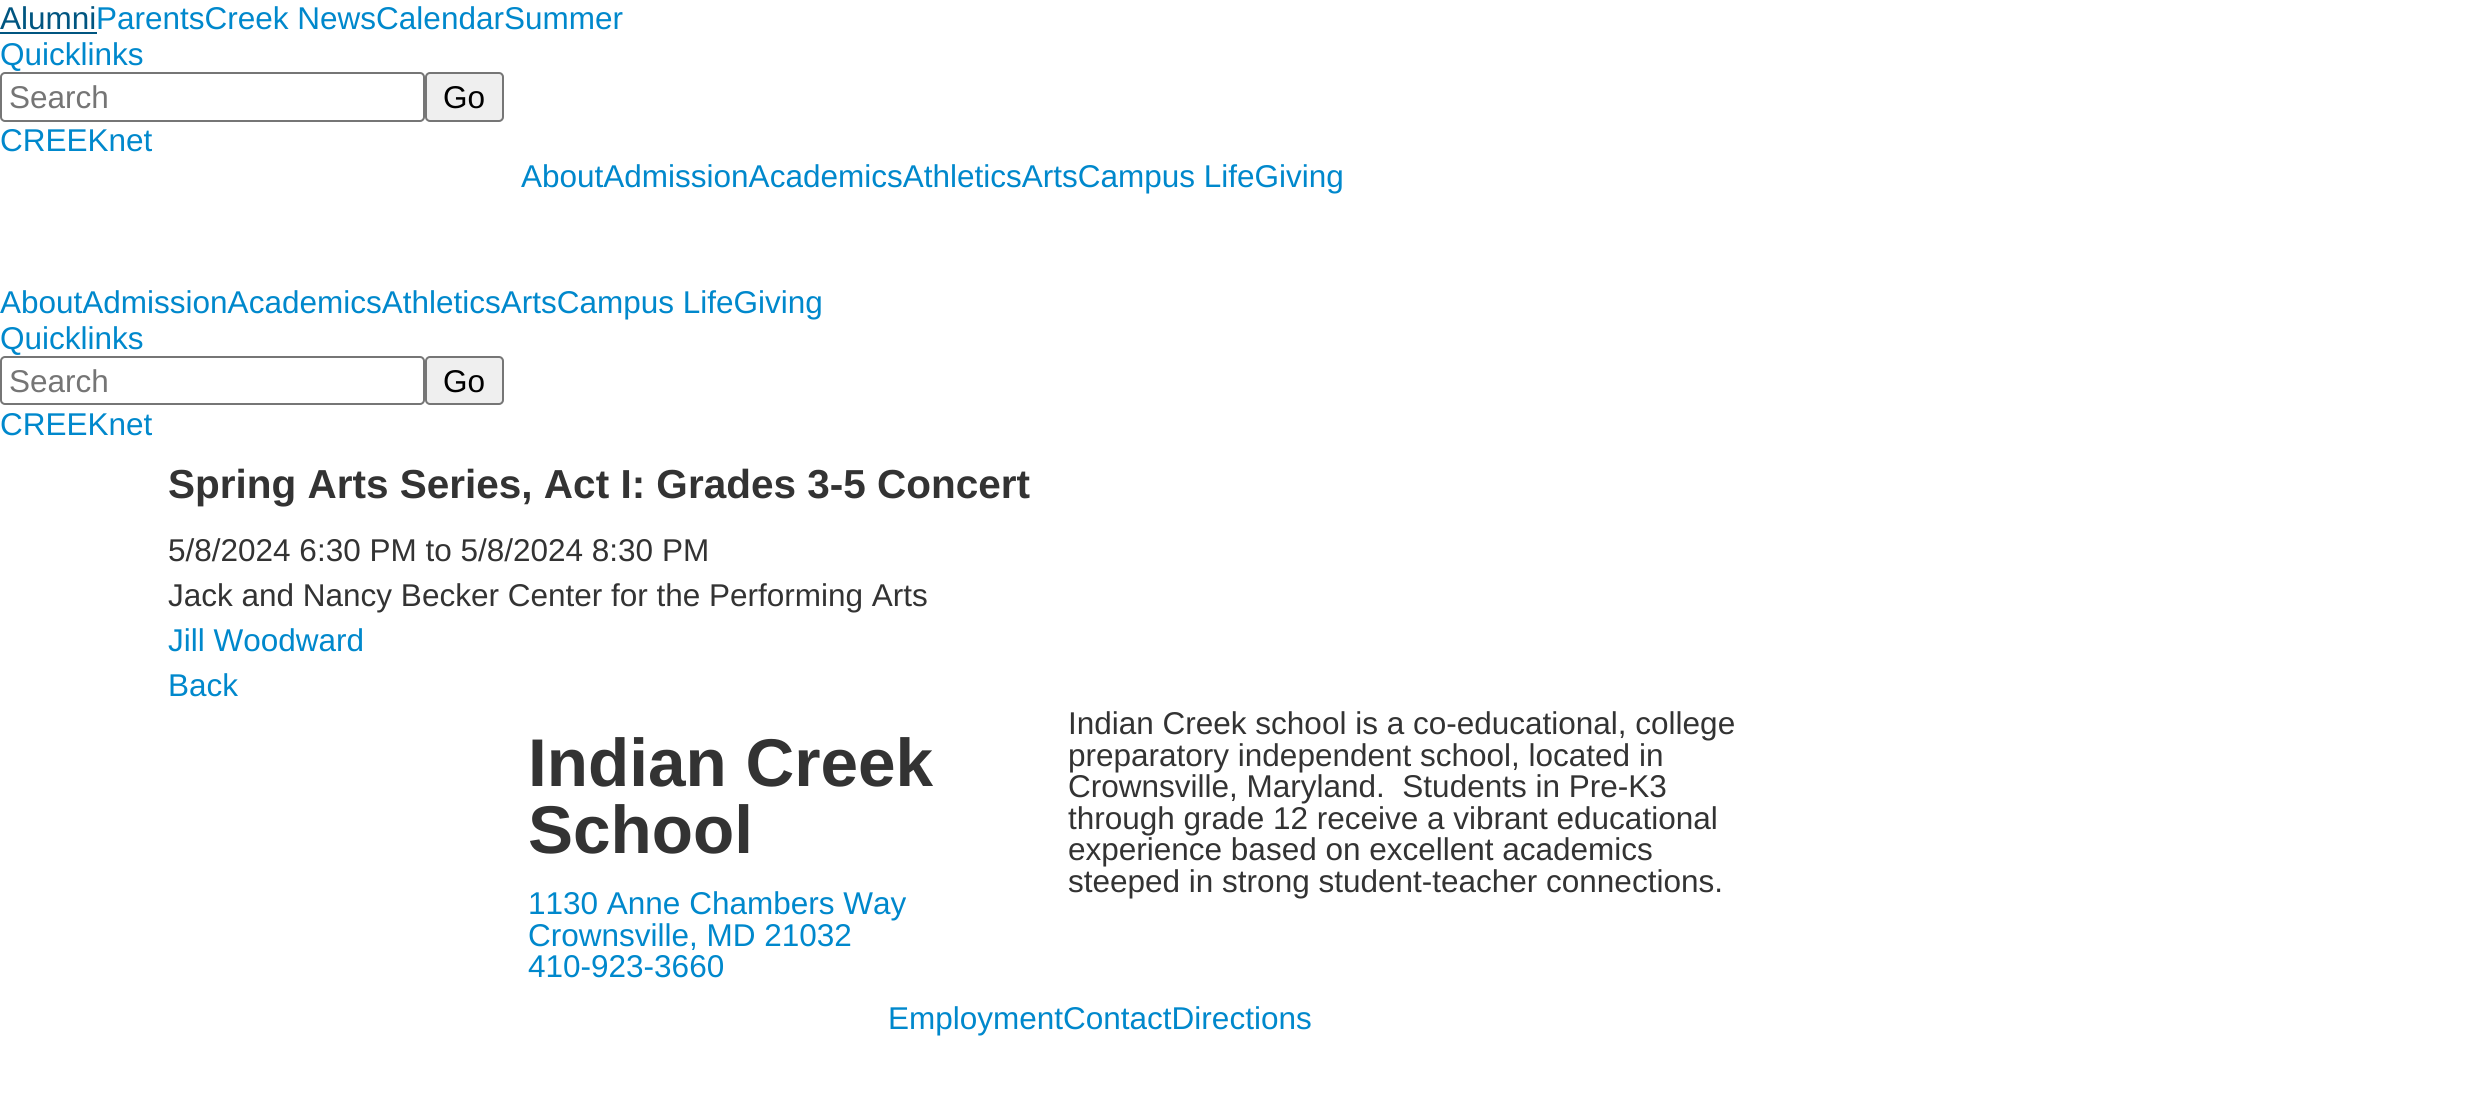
import math
import cairocffi as cairo

surface = cairo.ImageSurface(cairo.FORMAT_RGB24, 2472, 1117)
cr = cairo.Context(surface)
options = cairo.FontOptions()
options.set_hint_metrics(cairo.HINT_METRICS_OFF)
options.set_hint_style(cairo.HINT_STYLE_NONE)
cr.set_font_options(options)
cr.set_miter_limit(4)


def use_color(code):
    cr.set_source_rgb(*(v / 255 for v in bytes.fromhex(code[-6:])))


def round_rect(x, y, w, h, r):
    cr.new_sub_path()
    for i, (u, v) in enumerate([(x + w - r, y + h - r), (x + r, y + h - r), (x + r, y + r), (x + w - r, y + r)]):
        cr.arc(u, v, r, i * math.pi / 2, (i + 1) * math.pi / 2)
    cr.close_path()


use_color("#ffffff")
cr.paint()
cr.select_font_face("Liberation Sans")
cr.set_font_size(31.5)
use_color("#005580")
cr.move_to(0, 29)
cr.show_text("Alumni")
cr.rectangle(0, 32, 97, 2)
cr.fill()
use_color("#0088cc")
cr.move_to(96, 29)
cr.show_text("ParentsCreek NewsCalendarSummer")
cr.move_to(0, 65)
cr.show_text("Quicklinks")
round_rect(1, 73, 423, 48, 4)
use_color("#767676")
cr.stroke()
use_color("#757575")
cr.move_to(9, 108)
cr.show_text("Search")
use_color("#efefef")
round_rect(426, 73, 77, 48, 4)
cr.fill_preserve()
use_color("#767676")
cr.stroke()
use_color("#000000")
cr.move_to(443, 108)
cr.show_text("Go")
use_color("#0088cc")
cr.move_to(0, 151)
cr.show_text("CREEKnet")
cr.move_to(521, 187)
cr.show_text("AboutAdmissionAcademicsAthleticsArtsCampus LifeGiving")
cr.move_to(0, 313)
cr.show_text("AboutAdmissionAcademicsAthleticsArtsCampus LifeGiving")
cr.move_to(0, 349)
cr.show_text("Quicklinks")
round_rect(1, 357, 423, 47, 4)
use_color("#767676")
cr.stroke()
use_color("#757575")
cr.move_to(9, 392)
cr.show_text("Search")
use_color("#efefef")
round_rect(426, 357, 77, 47, 4)
cr.fill_preserve()
use_color("#767676")
cr.stroke()
use_color("#000000")
cr.move_to(443, 392)
cr.show_text("Go")
use_color("#0088cc")
cr.move_to(0, 435)
cr.show_text("CREEKnet")
cr.select_font_face("Liberation Sans", cairo.FONT_SLANT_NORMAL, cairo.FONT_WEIGHT_BOLD)
cr.set_font_size(40.5)
use_color("#333333")
cr.move_to(168, 498)
cr.show_text("Spring Arts Series, Act I: Grades 3-5 Concert")
cr.select_font_face("Liberation Sans")
cr.set_font_size(31.5)
cr.move_to(168, 561)
cr.show_text("5/8/2024 6:30 PM to 5/8/2024 8:30 PM")
cr.move_to(168, 606)
cr.show_text("Jack and Nancy Becker Center for the Performing Arts")
use_color("#0088cc")
cr.move_to(168, 651)
cr.show_text("Jill Woodward")
cr.move_to(168, 696)
cr.show_text("Back")
cr.select_font_face("Liberation Sans", cairo.FONT_SLANT_NORMAL, cairo.FONT_WEIGHT_BOLD)
cr.set_font_size(67.5)
use_color("#333333")
cr.move_to(528, 786)
cr.show_text("Indian Creek")
cr.move_to(528, 853)
cr.show_text("School")
cr.select_font_face("Liberation Sans")
cr.set_font_size(31.5)
use_color("#0088cc")
cr.move_to(528, 914)
cr.show_text("1130 Anne Chambers Way")
cr.move_to(528, 946)
cr.show_text("Crownsville, MD 21032")
cr.move_to(528, 977)
cr.show_text("410-923-3660")
use_color("#333333")
cr.move_to(1068, 734)
cr.show_text("Indian Creek school is a co-educational, college")
cr.move_to(1068, 766)
cr.show_text("preparatory independent school, located in")
cr.move_to(1068, 797)
cr.show_text("Crownsville, Maryland.  Students in Pre-K3")
cr.move_to(1068, 829)
cr.show_text("through grade 12 receive a vibrant educational")
cr.move_to(1068, 860)
cr.show_text("experience based on excellent academics")
cr.move_to(1068, 892)
cr.show_text("steeped in strong student-teacher connections.")
use_color("#0088cc")
cr.move_to(888, 1029)
cr.show_text("EmploymentContactDirections")
surface.write_to_png("result.png")
